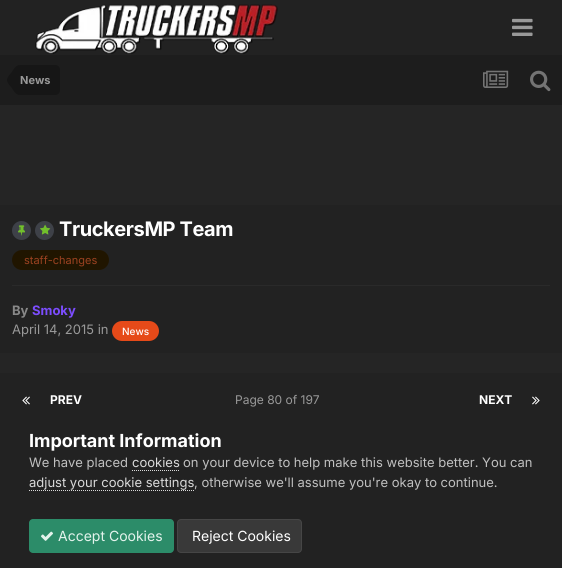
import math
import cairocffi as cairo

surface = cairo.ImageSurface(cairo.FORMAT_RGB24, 562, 568)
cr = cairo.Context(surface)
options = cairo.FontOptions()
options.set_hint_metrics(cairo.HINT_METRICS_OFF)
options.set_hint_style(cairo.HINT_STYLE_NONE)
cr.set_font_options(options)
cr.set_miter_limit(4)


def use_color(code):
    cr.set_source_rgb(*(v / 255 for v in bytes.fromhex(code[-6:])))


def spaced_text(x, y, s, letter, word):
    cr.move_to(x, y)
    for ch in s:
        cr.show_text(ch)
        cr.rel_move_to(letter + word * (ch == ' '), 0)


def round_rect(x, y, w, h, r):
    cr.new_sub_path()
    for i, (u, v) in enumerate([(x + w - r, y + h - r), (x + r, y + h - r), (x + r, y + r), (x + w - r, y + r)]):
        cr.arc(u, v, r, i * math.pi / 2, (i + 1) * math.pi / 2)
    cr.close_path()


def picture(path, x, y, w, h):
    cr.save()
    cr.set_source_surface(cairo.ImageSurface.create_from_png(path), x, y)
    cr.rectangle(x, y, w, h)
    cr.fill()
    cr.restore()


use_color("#252525")
cr.paint()
use_color("#222222")
cr.rectangle(0, 0, 562, 55)
cr.fill()
picture("img1.png", 35, 4, 243, 50)
picture("img2.png", 512, 18, 21, 18)
use_color("#1d1d1d")
cr.rectangle(0, 55, 562, 50)
cr.fill()
use_color("#161616")
cr.new_path()
cr.move_to(20, 65)
cr.line_to(55, 65)
cr.curve_to(58, 65, 60, 67, 60, 70)
cr.line_to(60, 90)
cr.curve_to(60, 93, 58, 95, 55, 95)
cr.line_to(20, 95)
cr.close_path()
cr.fill()
cr.new_path()
cr.move_to(20, 80)
cr.line_to(20, 95)
cr.curve_to(15.5, 95, 13.5, 90.5, 11, 87)
cr.curve_to(9.5, 85, 7, 83, 7, 80)
cr.close_path()
cr.move_to(20, 80)
cr.line_to(7, 80)
cr.curve_to(7, 77, 9.5, 75, 11, 73)
cr.curve_to(13.5, 69.5, 15.5, 65, 20, 65)
cr.close_path()
cr.fill()
cr.select_font_face("Inter", cairo.FONT_SLANT_NORMAL, cairo.FONT_WEIGHT_BOLD)
cr.set_font_size(11)
use_color("#999999")
cr.move_to(20, 84)
cr.show_text("News")
picture("img3.png", 483, 70, 26, 18)
picture("img4.png", 530, 70, 21, 22)
use_color("#222222")
cr.rectangle(0, 205, 562, 148)
cr.fill()
use_color("#3e4148")
cr.arc(21.5, 230.5, 9.5, 0, 2 * math.pi)
cr.fill()
picture("img5.png", 18, 225, 7, 11)
cr.arc(44.5, 230.5, 9.5, 0, 2 * math.pi)
cr.fill()
picture("img6.png", 40, 224, 11, 11)
cr.set_font_size(20)
use_color("#ffffff")
spaced_text(59, 236, "TruckersMP Team", -0.4, 0)
use_color("#201500")
round_rect(12, 250, 97, 20, 10)
cr.fill()
cr.select_font_face("Inter")
cr.set_font_size(11)
use_color("#9c4221")
cr.move_to(24, 264)
cr.show_text("staff-changes")
use_color("#2a2a2a")
cr.rectangle(12, 285, 538, 1)
cr.fill()
cr.select_font_face("Inter", cairo.FONT_SLANT_NORMAL, cairo.FONT_WEIGHT_BOLD)
cr.set_font_size(13)
use_color("#888888")
cr.move_to(12, 315)
cr.show_text("By")
use_color("#7c4dff")
cr.move_to(32, 315)
cr.show_text("Smoky")
cr.select_font_face("Inter")
use_color("#999999")
cr.move_to(12, 334)
cr.show_text("April 14, 2015 in")
use_color("#e64a19")
round_rect(112, 321, 47, 20, 10)
cr.fill()
cr.select_font_face("Inter Medium")
cr.set_font_size(10)
use_color("#ffffff")
cr.move_to(122, 335)
cr.show_text("News")
use_color("#222222")
cr.rectangle(0, 373, 562, 195)
cr.fill()
picture("img7.png", 22, 396, 8, 9)
cr.select_font_face("Inter", cairo.FONT_SLANT_NORMAL, cairo.FONT_WEIGHT_BOLD)
cr.set_font_size(12)
use_color("#ffffff")
cr.move_to(50, 404)
cr.show_text("PREV")
cr.select_font_face("Inter")
use_color("#999999")
cr.move_to(235, 404)
cr.show_text("Page 80 of 197")
cr.select_font_face("Inter", cairo.FONT_SLANT_NORMAL, cairo.FONT_WEIGHT_BOLD)
use_color("#ffffff")
cr.move_to(479, 404)
cr.show_text("NEXT")
picture("img8.png", 532, 396, 8, 9)
cr.set_font_size(18)
cr.move_to(29, 447)
cr.show_text("Important Information")
cr.select_font_face("Inter")
cr.set_font_size(13)
use_color("#c0c0c0")
cr.move_to(29, 467)
cr.show_text("We have placed")
use_color("#dadada")
cr.move_to(132, 467)
cr.show_text("cookies")
cr.new_path()
cr.move_to(132, 470.5)
cr.line_to(179, 470.5)
cr.set_line_width(1)
cr.set_dash([1, 1])
cr.stroke()
use_color("#c0c0c0")
cr.move_to(183, 467)
cr.show_text("on your device to help make this website better. You can")
use_color("#dadada")
cr.move_to(29, 487)
cr.show_text("adjust your cookie settings")
cr.new_path()
cr.move_to(29, 490.5)
cr.line_to(194, 490.5)
cr.stroke()
use_color("#c0c0c0")
cr.move_to(194, 487)
cr.show_text(", otherwise we'll assume you're okay to continue.")
use_color("#2c8c69")
round_rect(29, 519, 145, 34, 4)
cr.fill()
picture("img9.png", 41, 531, 12, 10)
cr.set_font_size(14)
use_color("#e3f3ec")
cr.move_to(58, 541)
cr.show_text("Accept Cookies")
use_color("#393939")
round_rect(177, 519, 125, 34, 4)
cr.fill()
round_rect(177.5, 519.5, 124, 33, 3.5)
cr.set_source_rgba(1, 1, 1, 0.07)
cr.set_dash([])
cr.stroke()
use_color("#ffffff")
cr.move_to(192, 541)
cr.show_text("Reject Cookies")
surface.write_to_png("result.png")
